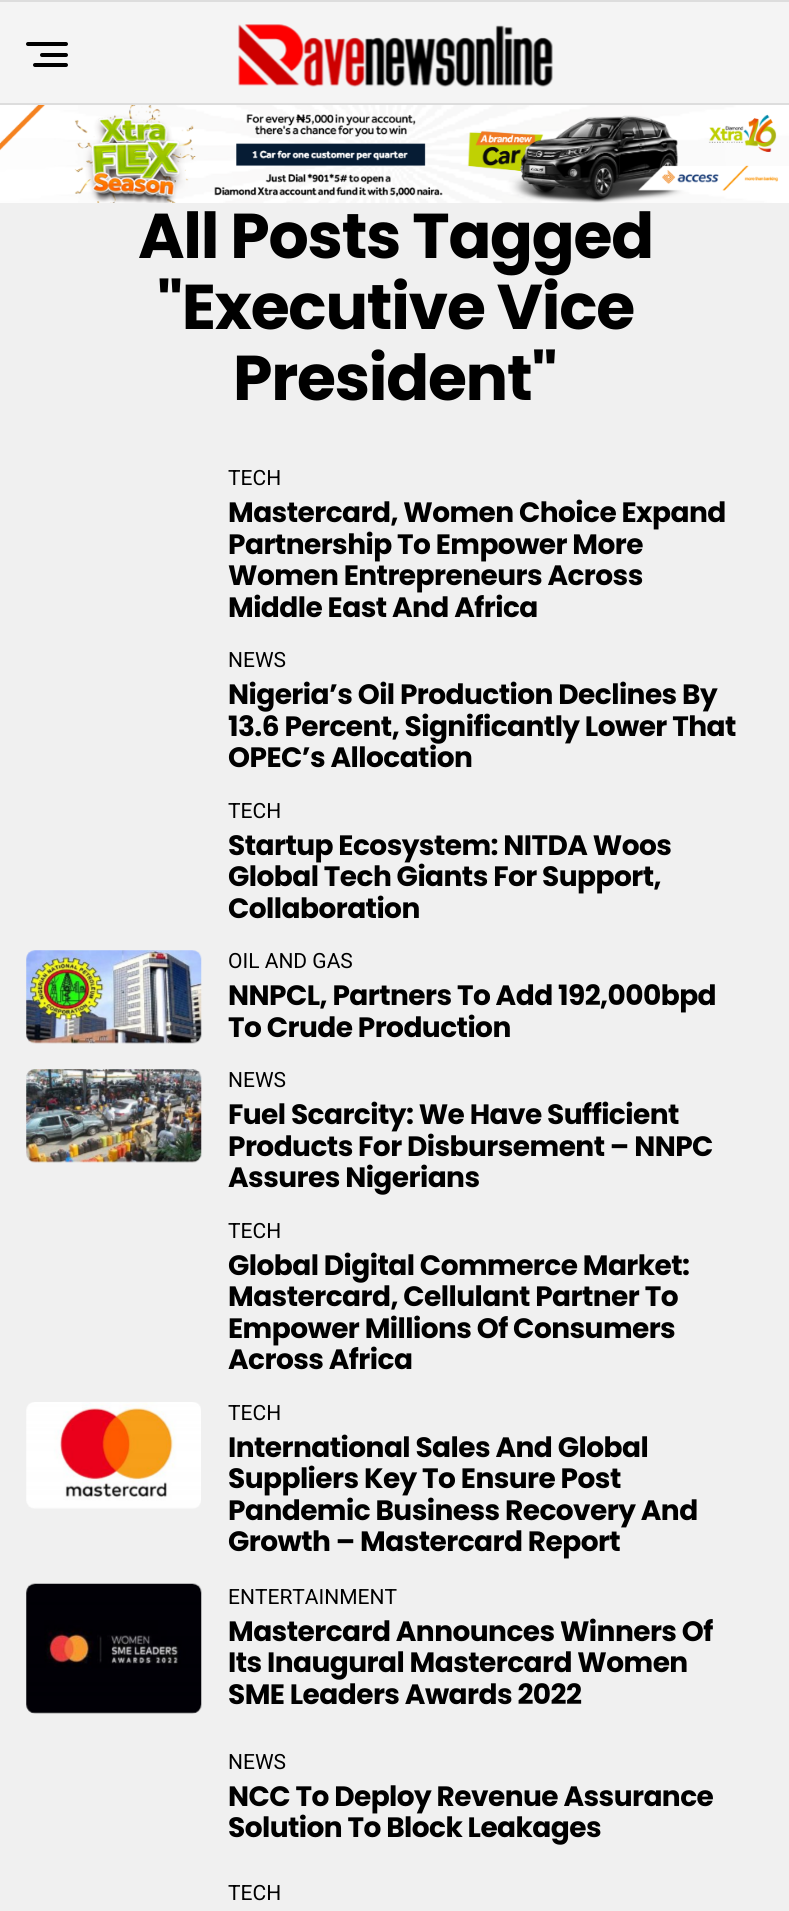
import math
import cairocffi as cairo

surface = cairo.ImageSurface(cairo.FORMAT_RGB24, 789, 1911)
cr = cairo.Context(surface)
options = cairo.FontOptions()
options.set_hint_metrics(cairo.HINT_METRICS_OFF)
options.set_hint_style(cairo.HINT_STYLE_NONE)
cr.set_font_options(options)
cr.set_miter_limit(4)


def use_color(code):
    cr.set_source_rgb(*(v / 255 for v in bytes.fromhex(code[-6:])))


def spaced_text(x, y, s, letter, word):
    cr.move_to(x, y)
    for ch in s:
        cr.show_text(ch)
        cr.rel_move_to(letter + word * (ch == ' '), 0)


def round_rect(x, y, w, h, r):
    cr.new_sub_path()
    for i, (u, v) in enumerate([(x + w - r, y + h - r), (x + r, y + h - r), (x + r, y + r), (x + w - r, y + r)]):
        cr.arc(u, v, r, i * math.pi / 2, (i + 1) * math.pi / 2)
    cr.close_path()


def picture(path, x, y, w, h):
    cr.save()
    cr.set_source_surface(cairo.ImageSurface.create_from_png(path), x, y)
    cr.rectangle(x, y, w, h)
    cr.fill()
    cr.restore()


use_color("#f0f0f0")
cr.paint()
use_color("#f4f4f4")
cr.rectangle(0, 2, 789, 101)
cr.fill()
use_color("#dddddd")
cr.rectangle(0, 0, 789, 2)
cr.fill()
cr.rectangle(0, 103, 789, 2)
cr.fill()
use_color("#000000")
round_rect(26, 42, 42, 4, 2)
cr.fill()
round_rect(40, 53, 28, 4, 2)
cr.fill()
round_rect(33, 63, 35, 4, 2)
cr.fill()
picture("img1.png", 238, 24, 315, 63)
picture("img2.png", 0, 105, 789, 98)
cr.select_font_face("Poppins", cairo.FONT_SLANT_NORMAL, cairo.FONT_WEIGHT_BOLD)
cr.set_font_size(63.25)
spaced_text(138, 258, "All Posts Tagged", -1.25, 0)
spaced_text(157, 329, "\"Executive Vice", -1.25, 0)
spaced_text(233, 400, "President\"", -1.25, 0)
cr.select_font_face("Roboto")
cr.set_font_size(21)
cr.move_to(228, 485)
cr.show_text("TECH")
cr.select_font_face("Poppins", cairo.FONT_SLANT_NORMAL, cairo.FONT_WEIGHT_BOLD)
cr.set_font_size(28)
spaced_text(228, 522, "Mastercard, Women Choice Expand", -0.55, 0)
spaced_text(228, 554, "Partnership To Empower More", -0.55, 0)
spaced_text(228, 585, "Women Entrepreneurs Across", -0.55, 0)
spaced_text(228, 617, "Middle East And Africa", -0.55, 0)
cr.select_font_face("Roboto")
cr.set_font_size(21)
cr.move_to(228, 667)
cr.show_text("NEWS")
cr.select_font_face("Poppins", cairo.FONT_SLANT_NORMAL, cairo.FONT_WEIGHT_BOLD)
cr.set_font_size(28)
spaced_text(228, 704, "Nigeria’s Oil Production Declines By", -0.55, 0)
spaced_text(228, 736, "13.6 Percent, Significantly Lower That", -0.55, 0)
spaced_text(228, 767, "OPEC’s Allocation", -0.55, 0)
cr.select_font_face("Roboto")
cr.set_font_size(21)
cr.move_to(228, 818)
cr.show_text("TECH")
cr.select_font_face("Poppins", cairo.FONT_SLANT_NORMAL, cairo.FONT_WEIGHT_BOLD)
cr.set_font_size(28)
spaced_text(228, 855, "Startup Ecosystem: NITDA Woos", -0.55, 0)
spaced_text(228, 886, "Global Tech Giants For Support,", -0.55, 0)
spaced_text(228, 918, "Collaboration", -0.55, 0)
picture("img3.png", 26, 950, 176, 94)
cr.select_font_face("Roboto")
cr.set_font_size(21)
cr.move_to(228, 968)
cr.show_text("OIL AND GAS")
cr.select_font_face("Poppins", cairo.FONT_SLANT_NORMAL, cairo.FONT_WEIGHT_BOLD)
cr.set_font_size(28)
spaced_text(228, 1005, "NNPCL, Partners To Add 192,000bpd", -0.55, 0)
spaced_text(228, 1037, "To Crude Production", -0.55, 0)
picture("img4.png", 26, 1069, 176, 94)
cr.select_font_face("Roboto")
cr.set_font_size(21)
cr.move_to(228, 1087)
cr.show_text("NEWS")
cr.select_font_face("Poppins", cairo.FONT_SLANT_NORMAL, cairo.FONT_WEIGHT_BOLD)
cr.set_font_size(28)
spaced_text(228, 1124, "Fuel Scarcity: We Have Sufficient", -0.55, 0)
spaced_text(228, 1156, "Products For Disbursement – NNPC", -0.55, 0)
spaced_text(228, 1187, "Assures Nigerians", -0.55, 0)
cr.select_font_face("Roboto")
cr.set_font_size(21)
cr.move_to(228, 1238)
cr.show_text("TECH")
cr.select_font_face("Poppins", cairo.FONT_SLANT_NORMAL, cairo.FONT_WEIGHT_BOLD)
cr.set_font_size(28)
spaced_text(228, 1275, "Global Digital Commerce Market:", -0.55, 0)
spaced_text(228, 1306, "Mastercard, Cellulant Partner To", -0.55, 0)
spaced_text(228, 1338, "Empower Millions Of Consumers", -0.55, 0)
spaced_text(228, 1369, "Across Africa", -0.55, 0)
picture("img5.png", 26, 1402, 175, 107)
cr.select_font_face("Roboto")
cr.set_font_size(21)
cr.move_to(228, 1420)
cr.show_text("TECH")
cr.select_font_face("Poppins", cairo.FONT_SLANT_NORMAL, cairo.FONT_WEIGHT_BOLD)
cr.set_font_size(28)
spaced_text(228, 1457, "International Sales And Global", -0.55, 0)
spaced_text(228, 1488, "Suppliers Key To Ensure Post", -0.55, 0)
spaced_text(228, 1520, "Pandemic Business Recovery And", -0.55, 0)
spaced_text(228, 1551, "Growth – Mastercard Report", -0.55, 0)
picture("img6.png", 26, 1583, 176, 131)
cr.select_font_face("Roboto")
cr.set_font_size(21)
cr.move_to(228, 1604)
cr.show_text("ENTERTAINMENT")
cr.select_font_face("Poppins", cairo.FONT_SLANT_NORMAL, cairo.FONT_WEIGHT_BOLD)
cr.set_font_size(28)
spaced_text(228, 1641, "Mastercard Announces Winners Of", -0.55, 0)
spaced_text(228, 1672, "Its Inaugural Mastercard Women", -0.55, 0)
spaced_text(228, 1704, "SME Leaders Awards 2022", -0.55, 0)
cr.select_font_face("Roboto")
cr.set_font_size(21)
cr.move_to(228, 1769)
cr.show_text("NEWS")
cr.select_font_face("Poppins", cairo.FONT_SLANT_NORMAL, cairo.FONT_WEIGHT_BOLD)
cr.set_font_size(28)
spaced_text(228, 1806, "NCC To Deploy Revenue Assurance", -0.55, 0)
spaced_text(228, 1837, "Solution To Block Leakages", -0.55, 0)
cr.select_font_face("Roboto")
cr.set_font_size(21)
cr.move_to(228, 1900)
cr.show_text("TECH")
surface.write_to_png("result.png")
